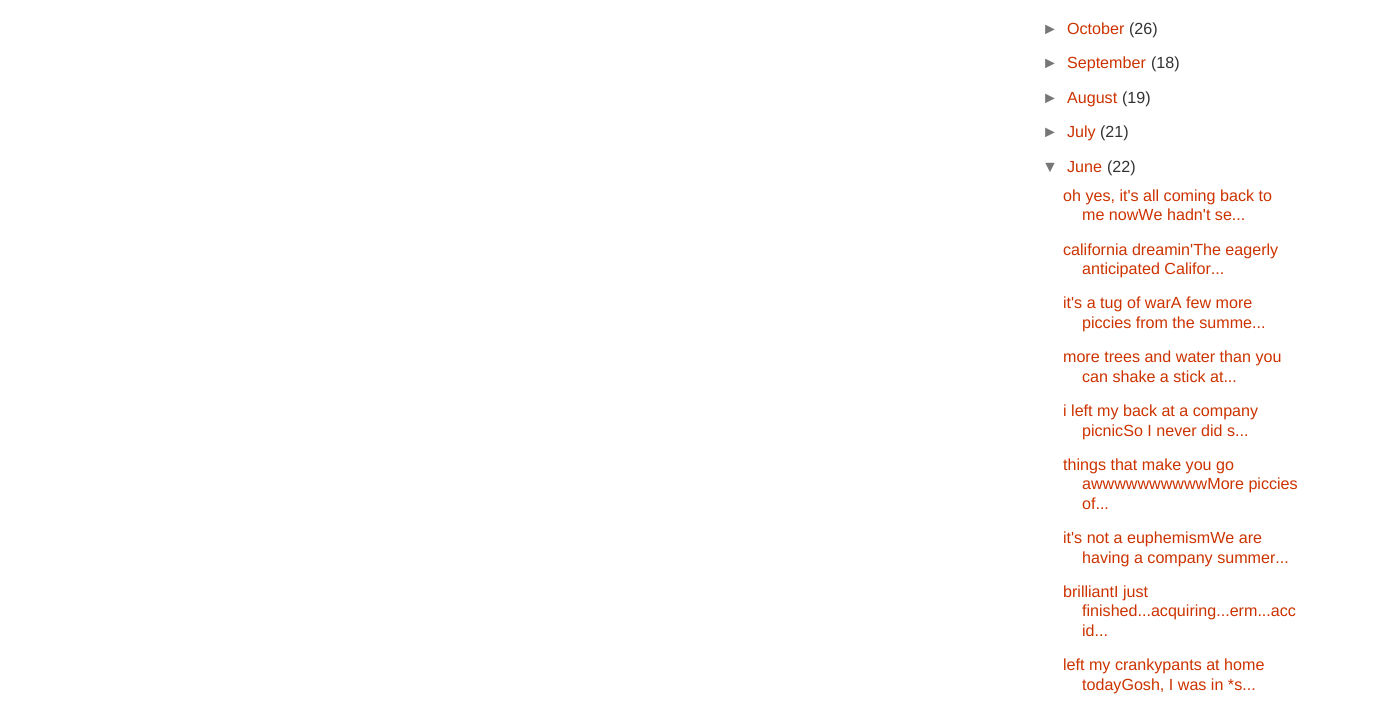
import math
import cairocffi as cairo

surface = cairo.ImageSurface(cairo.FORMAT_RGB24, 1396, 709)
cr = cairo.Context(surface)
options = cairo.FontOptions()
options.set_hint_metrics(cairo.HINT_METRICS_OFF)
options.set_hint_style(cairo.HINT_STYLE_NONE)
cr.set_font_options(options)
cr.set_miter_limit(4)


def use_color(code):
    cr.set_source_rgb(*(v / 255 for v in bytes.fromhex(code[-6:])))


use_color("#ffffff")
cr.paint()
cr.select_font_face("Liberation Sans")
cr.set_font_size(16.1)
use_color("#777777")
cr.move_to(1042, 34)
cr.show_text("►")
cr.select_font_face("Arimo")
use_color("#cc3300")
cr.move_to(1067, 34)
cr.show_text("October")
use_color("#333333")
cr.move_to(1129, 34)
cr.show_text("(26)")
cr.select_font_face("Liberation Sans")
use_color("#777777")
cr.move_to(1042, 68)
cr.show_text("►")
cr.select_font_face("Arimo")
use_color("#cc3300")
cr.move_to(1067, 68)
cr.show_text("September")
use_color("#333333")
cr.move_to(1151, 68)
cr.show_text("(18)")
cr.select_font_face("Liberation Sans")
use_color("#777777")
cr.move_to(1042, 103)
cr.show_text("►")
cr.select_font_face("Arimo")
use_color("#cc3300")
cr.move_to(1067, 103)
cr.show_text("August")
use_color("#333333")
cr.move_to(1122, 103)
cr.show_text("(19)")
cr.select_font_face("Liberation Sans")
use_color("#777777")
cr.move_to(1042, 137)
cr.show_text("►")
cr.select_font_face("Arimo")
use_color("#cc3300")
cr.move_to(1067, 137)
cr.show_text("July")
use_color("#333333")
cr.move_to(1100, 137)
cr.show_text("(21)")
cr.select_font_face("Liberation Sans")
use_color("#777777")
cr.move_to(1042, 172)
cr.show_text("▼")
cr.select_font_face("Arimo")
use_color("#cc3300")
cr.move_to(1067, 172)
cr.show_text("June")
use_color("#333333")
cr.move_to(1107, 172)
cr.show_text("(22)")
use_color("#cc3300")
cr.move_to(1063, 201)
cr.show_text("oh yes, it's all coming back to")
cr.move_to(1082, 220)
cr.show_text("me nowWe hadn't se...")
cr.move_to(1063, 255)
cr.show_text("california dreamin'The eagerly")
cr.move_to(1082, 274)
cr.show_text("anticipated Califor...")
cr.move_to(1063, 308)
cr.show_text("it's a tug of warA few more")
cr.move_to(1082, 328)
cr.show_text("piccies from the summe...")
cr.move_to(1063, 362)
cr.show_text("more trees and water than you")
cr.move_to(1082, 382)
cr.show_text("can shake a stick at...")
cr.move_to(1063, 416)
cr.show_text("i left my back at a company")
cr.move_to(1082, 436)
cr.show_text("picnicSo I never did s...")
cr.move_to(1063, 470)
cr.show_text("things that make you go")
cr.move_to(1082, 489)
cr.show_text("awwwwwwwwwwMore piccies")
cr.move_to(1082, 509)
cr.show_text("of...")
cr.move_to(1063, 543)
cr.show_text("it's not a euphemismWe are")
cr.move_to(1082, 563)
cr.show_text("having a company summer...")
cr.move_to(1063, 597)
cr.show_text("brilliantI just")
cr.move_to(1082, 616)
cr.show_text("finished...acquiring...erm...acc")
cr.move_to(1082, 636)
cr.show_text("id...")
cr.move_to(1063, 670)
cr.show_text("left my crankypants at home")
cr.move_to(1082, 690)
cr.show_text("todayGosh, I was in *s...")
surface.write_to_png("result.png")
